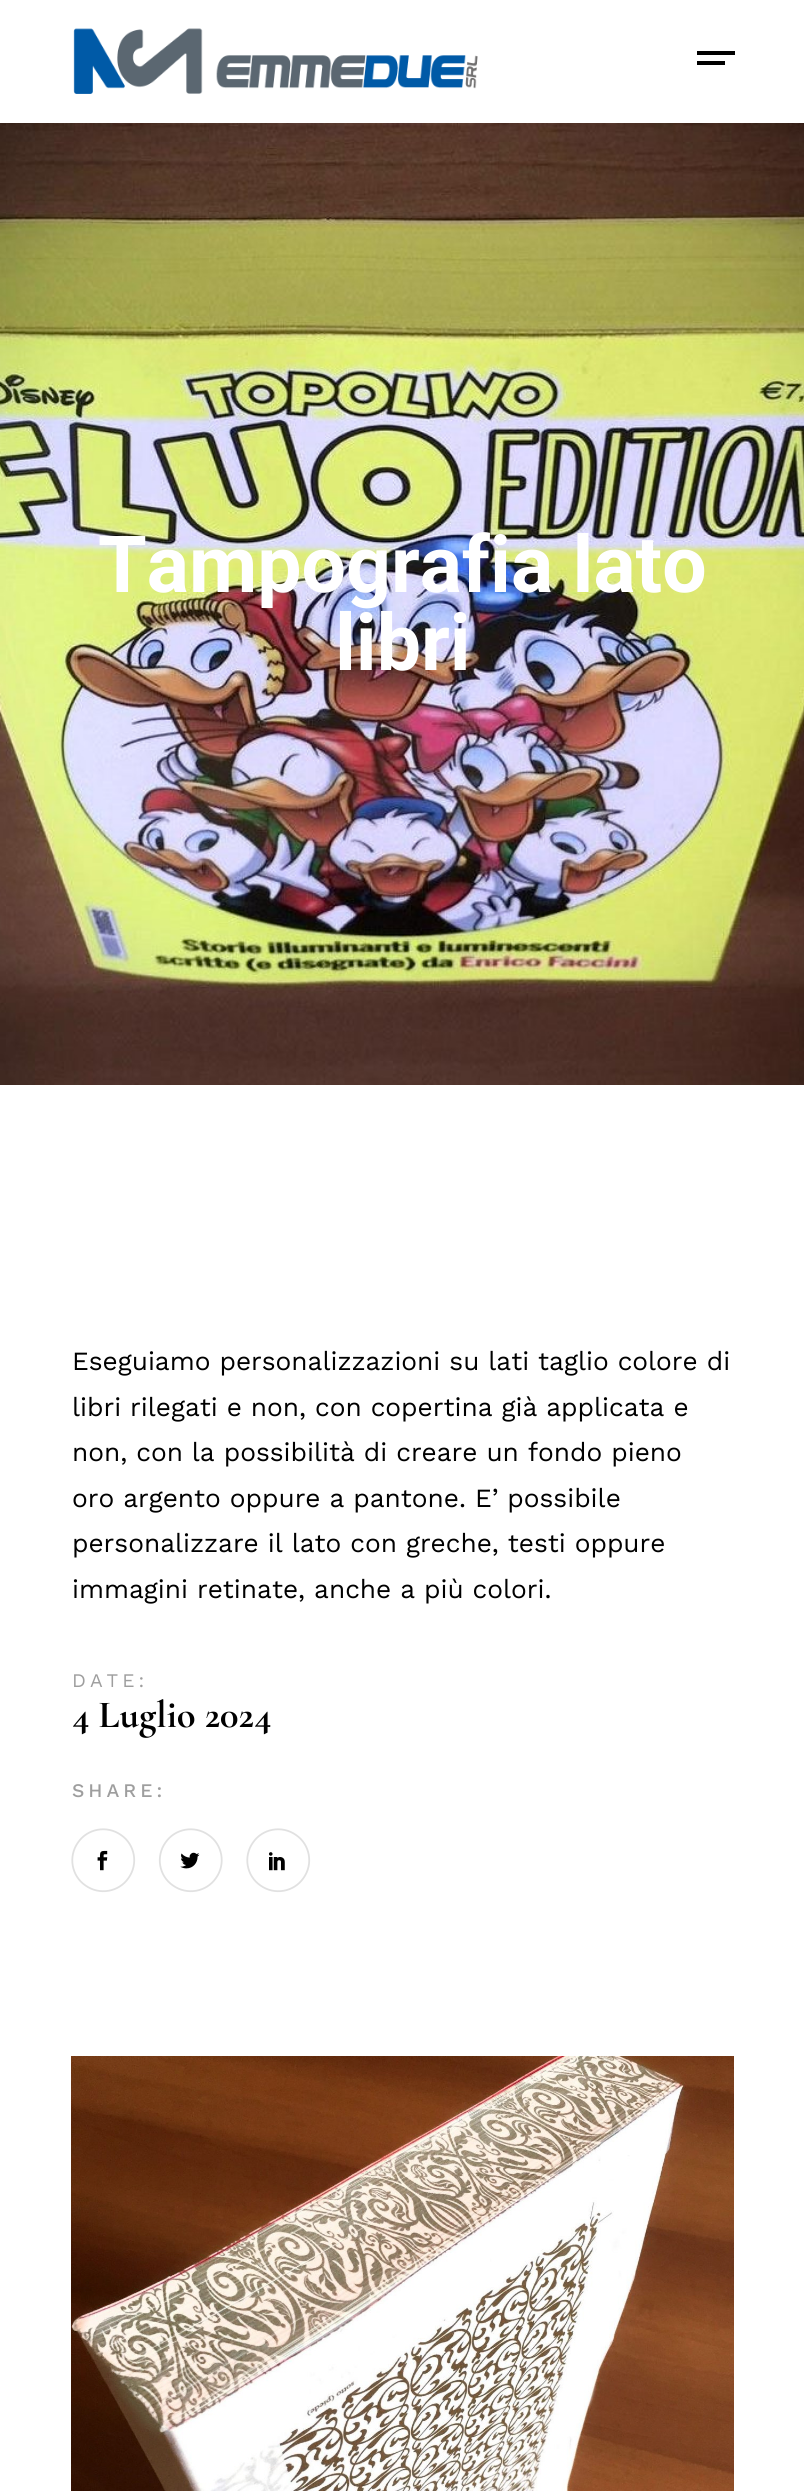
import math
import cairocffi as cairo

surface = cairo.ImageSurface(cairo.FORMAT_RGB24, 804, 2491)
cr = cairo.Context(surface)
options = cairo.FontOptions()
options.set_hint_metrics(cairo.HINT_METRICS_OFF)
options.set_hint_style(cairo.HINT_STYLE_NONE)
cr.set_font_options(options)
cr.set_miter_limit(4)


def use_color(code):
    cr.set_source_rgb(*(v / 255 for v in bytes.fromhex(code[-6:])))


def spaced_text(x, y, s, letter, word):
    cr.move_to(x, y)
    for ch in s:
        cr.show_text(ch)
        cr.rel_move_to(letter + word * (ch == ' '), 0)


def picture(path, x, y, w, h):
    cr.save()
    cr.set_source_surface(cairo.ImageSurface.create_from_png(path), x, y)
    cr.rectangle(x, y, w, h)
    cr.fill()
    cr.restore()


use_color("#ffffff")
cr.paint()
picture("img1.png", 73, 28, 405, 66)
use_color("#000000")
cr.rectangle(697, 51, 38, 4)
cr.fill()
cr.rectangle(697, 61, 28, 4)
cr.fill()
picture("img2.png", 0, 123, 804, 962)
cr.select_font_face("Roboto", cairo.FONT_SLANT_NORMAL, cairo.FONT_WEIGHT_BOLD)
cr.set_font_size(78.75)
use_color("#ffffff")
cr.move_to(98, 592)
cr.show_text("Tampografia lato")
cr.move_to(335, 670)
cr.show_text("libri")
cr.select_font_face("Work Sans")
cr.set_font_size(26.25)
use_color("#000000")
cr.move_to(72, 1370)
cr.show_text("Eseguiamo personalizzazioni su lati taglio colore di")
cr.move_to(72, 1416)
cr.show_text("libri rilegati e non, con copertina già applicata e")
cr.move_to(72, 1461)
cr.show_text("non, con la possibilità di creare un fondo pieno")
cr.move_to(72, 1507)
cr.show_text("oro argento oppure a pantone. E’ possibile")
cr.move_to(72, 1552)
cr.show_text("personalizzare il lato con greche, testi oppure")
cr.move_to(72, 1598)
cr.show_text("immagini retinate, anche a più colori.")
cr.set_font_size(19.25)
use_color("#9e9e9e")
spaced_text(72, 1687, "DATE:", 4, 0)
cr.select_font_face("Cormorant", cairo.FONT_SLANT_NORMAL, cairo.FONT_WEIGHT_BOLD)
cr.set_font_size(38.5)
use_color("#000000")
cr.move_to(72, 1727)
cr.show_text("4 Luglio 2024")
cr.select_font_face("Work Sans Medium")
cr.set_font_size(19.25)
use_color("#9e9e9e")
spaced_text(72, 1797, "SHARE:", 4, 0)
picture("img3.png", 97, 1850, 11, 21)
cr.new_path()
cr.move_to(85.5, 1885.5)
cr.curve_to(71.5, 1876, 68, 1856.5, 78, 1842.5)
cr.curve_to(87.5, 1828.5, 107, 1825, 121, 1835)
cr.curve_to(135, 1844.5, 138.5, 1864, 128.5, 1878)
cr.curve_to(119, 1892, 99.5, 1895.5, 85.5, 1885.5)
use_color("#e1e1e1")
cr.set_line_width(1.8)
cr.stroke()
picture("img4.png", 180, 1852, 20, 17)
cr.new_path()
cr.move_to(173, 1885.5)
cr.curve_to(159, 1876, 155.5, 1856.5, 165.5, 1842.5)
cr.curve_to(175, 1828.5, 194.5, 1825, 208.5, 1835)
cr.curve_to(222.5, 1844.5, 226, 1864, 216, 1878)
cr.curve_to(206.5, 1892, 187, 1895.5, 173, 1885.5)
cr.stroke()
picture("img5.png", 269, 1852, 16, 19)
cr.new_path()
cr.move_to(260.5, 1885.5)
cr.curve_to(246.5, 1876, 243, 1856.5, 253, 1842.5)
cr.curve_to(262.5, 1828.5, 282, 1825, 296, 1835)
cr.curve_to(310, 1844.5, 313.5, 1864, 303.5, 1878)
cr.curve_to(294, 1892, 274.5, 1895.5, 260.5, 1885.5)
cr.stroke()
picture("img6.png", 71, 2056, 663, 435)
surface.write_to_png("result.png")
